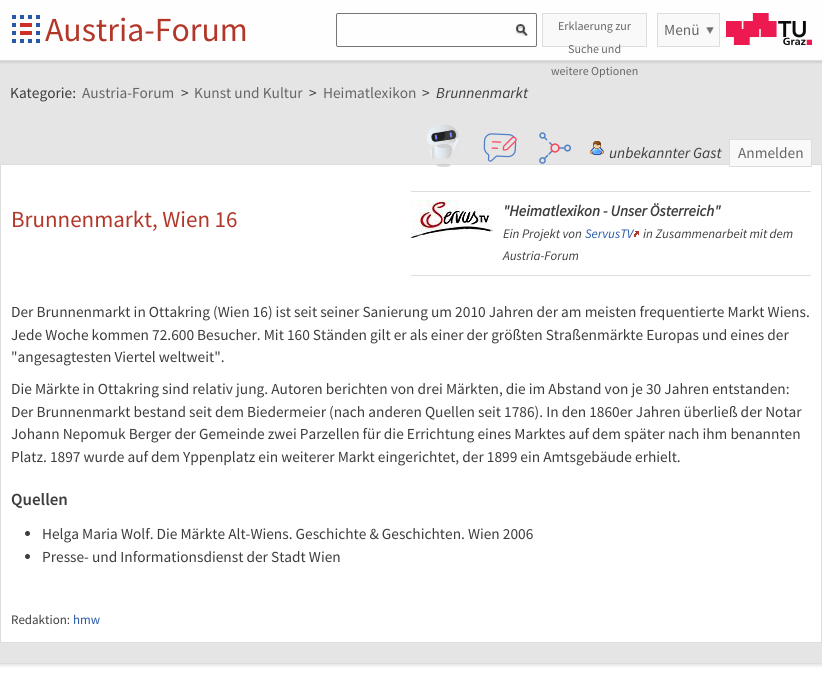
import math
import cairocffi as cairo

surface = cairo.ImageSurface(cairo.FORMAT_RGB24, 822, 684)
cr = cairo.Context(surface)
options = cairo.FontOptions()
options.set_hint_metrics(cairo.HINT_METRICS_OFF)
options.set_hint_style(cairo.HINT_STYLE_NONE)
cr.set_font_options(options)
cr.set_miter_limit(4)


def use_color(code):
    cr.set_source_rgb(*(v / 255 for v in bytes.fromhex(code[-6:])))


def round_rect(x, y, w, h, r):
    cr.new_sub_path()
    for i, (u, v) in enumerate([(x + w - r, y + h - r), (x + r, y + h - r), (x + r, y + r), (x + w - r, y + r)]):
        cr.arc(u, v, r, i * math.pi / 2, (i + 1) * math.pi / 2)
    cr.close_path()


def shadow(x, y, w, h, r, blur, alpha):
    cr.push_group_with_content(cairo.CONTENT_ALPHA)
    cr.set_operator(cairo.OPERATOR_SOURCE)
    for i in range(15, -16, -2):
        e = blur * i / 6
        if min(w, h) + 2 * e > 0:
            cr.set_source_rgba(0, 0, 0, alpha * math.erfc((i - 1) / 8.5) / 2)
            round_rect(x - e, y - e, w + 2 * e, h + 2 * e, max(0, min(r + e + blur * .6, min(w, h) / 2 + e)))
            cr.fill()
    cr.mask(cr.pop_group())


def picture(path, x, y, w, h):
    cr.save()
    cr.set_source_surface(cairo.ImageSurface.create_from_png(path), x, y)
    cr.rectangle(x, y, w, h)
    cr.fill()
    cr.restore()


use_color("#ffffff")
cr.paint()
use_color("#000000")
shadow(-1, -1, 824, 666, 0, 2, 0.15)
use_color("#e5e5e5")
cr.rectangle(0, 61, 822, 602)
cr.fill()
use_color("#fefefe")
cr.rectangle(0, 1, 822, 59)
cr.fill()
use_color("#fdfdfd")
cr.rectangle(0, 0, 822, 1)
cr.fill()
cr.save()
cr.rectangle(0, 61, 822, 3)
cr.clip()
use_color("#000000")
shadow(-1, -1, 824, 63, 0, 2, 0.15)
cr.restore()
use_color("#dddddd")
cr.rectangle(0, 60, 822, 1)
cr.fill()
picture("img1.png", 12, 15, 28, 28)
cr.select_font_face("Source Sans Pro")
cr.set_font_size(33.75)
use_color("#b23729")
cr.move_to(45, 41)
cr.show_text("Austria-Forum")
round_rect(336.5, 13.5, 200, 33, 1.5)
use_color("#767676")
cr.set_line_width(1)
cr.stroke()
picture("img2.png", 516, 24, 12, 12)
use_color("#f9f9f9")
cr.rectangle(542.5, 13.5, 104, 33)
cr.fill_preserve()
use_color("#dddddd")
cr.stroke()
cr.set_font_size(12)
use_color("#666666")
cr.move_to(558, 30)
cr.show_text("Erklaerung zur")
cr.move_to(568, 53)
cr.show_text("Suche und")
cr.move_to(551, 75)
cr.show_text("weitere Optionen")
use_color("#f9f9f9")
cr.rectangle(657.5, 13.5, 62, 33)
cr.fill_preserve()
use_color("#dddddd")
cr.stroke()
picture("img3.png", 706, 27, 8, 7)
cr.set_font_size(15.35)
use_color("#666666")
cr.move_to(664, 35)
cr.show_text("Menü")
picture("img4.png", 726, 13, 86, 32)
use_color("#dddddd")
cr.rectangle(0, 663, 822, 1)
cr.fill()
use_color("#3d3d3d")
cr.move_to(10, 98)
cr.show_text("Kategorie:")
use_color("#666666")
cr.move_to(82, 98)
cr.show_text("Austria-Forum")
use_color("#3d3d3d")
cr.move_to(181, 98)
cr.show_text(">")
use_color("#666666")
cr.move_to(194, 98)
cr.show_text("Kunst und Kultur")
use_color("#3d3d3d")
cr.move_to(309, 98)
cr.show_text(">")
use_color("#666666")
cr.move_to(323, 98)
cr.show_text("Heimatlexikon")
use_color("#3d3d3d")
cr.move_to(422, 98)
cr.show_text(">")
cr.select_font_face("Source Sans Pro", cairo.FONT_SLANT_ITALIC)
cr.move_to(436, 98)
cr.show_text("Brunnenmarkt")
use_color("#ffffff")
cr.rectangle(0.5, 164.5, 821, 478)
cr.fill_preserve()
use_color("#dddddd")
cr.stroke()
picture("img5.png", 427, 124, 32, 43)
picture("img6.png", 483, 133, 34, 29)
picture("img7.png", 539, 132, 32, 32)
picture("img8.png", 590, 141, 14, 14)
use_color("#3d3d3d")
cr.move_to(609, 158)
cr.show_text("unbekannter Gast")
use_color("#f9f9f9")
cr.rectangle(729.5, 139.5, 82, 27)
cr.fill_preserve()
use_color("#dddddd")
cr.stroke()
cr.select_font_face("Source Sans Pro")
use_color("#666666")
cr.move_to(738, 158)
cr.show_text("Anmelden")
cr.set_font_size(23)
use_color("#b23729")
cr.move_to(11, 227)
cr.show_text("Brunnenmarkt, Wien 16")
use_color("#dddddd")
cr.rectangle(411, 191, 400, 1)
cr.fill()
cr.rectangle(411, 275, 400, 1)
cr.fill()
picture("img9.png", 411, 200, 82, 40)
cr.select_font_face("Source Sans Pro", cairo.FONT_SLANT_ITALIC, cairo.FONT_WEIGHT_BOLD)
cr.set_font_size(15.35)
use_color("#3d3d3d")
cr.move_to(503, 216)
cr.show_text("\"Heimatlexikon - Unser Österreich\"")
cr.select_font_face("Source Sans Pro", cairo.FONT_SLANT_ITALIC)
cr.set_font_size(13)
cr.move_to(503, 238)
cr.show_text("Ein Projekt von")
use_color("#2858a8")
cr.move_to(585, 238)
cr.show_text("ServusTV")
picture("img10.png", 634, 231, 5, 6)
use_color("#3d3d3d")
cr.move_to(643, 238)
cr.show_text("in Zusammenarbeit mit dem")
cr.move_to(503, 260)
cr.show_text("Austria-Forum")
cr.select_font_face("Source Sans Pro")
cr.set_font_size(15.35)
cr.move_to(11, 317)
cr.show_text("Der Brunnenmarkt in Ottakring (Wien 16) ist seit seiner Sanierung um 2010 Jahren der am meisten frequentierte Markt Wiens.")
cr.move_to(11, 340)
cr.show_text("Jede Woche kommen 72.600 Besucher. Mit 160 Ständen gilt er als einer der größten Straßenmärkte Europas und eines der")
cr.move_to(11, 362)
cr.show_text("\"angesagtesten Viertel weltweit\".")
cr.move_to(11, 394)
cr.show_text("Die Märkte in Ottakring sind relativ jung. Autoren berichten von drei Märkten, die im Abstand von je 30 Jahren entstanden:")
cr.move_to(11, 417)
cr.show_text("Der Brunnenmarkt bestand seit dem Biedermeier (nach anderen Quellen seit 1786). In den 1860er Jahren überließ der Notar")
cr.move_to(11, 439)
cr.show_text("Johann Nepomuk Berger der Gemeinde zwei Parzellen für die Errichtung eines Marktes auf dem später nach ihm benannten")
cr.move_to(11, 462)
cr.show_text("Platz. 1897 wurde auf dem Yppenplatz ein weiterer Markt eingerichtet, der 1899 ein Amtsgebäude erhielt.")
cr.select_font_face("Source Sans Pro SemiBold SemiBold")
cr.set_font_size(17)
cr.move_to(11, 505)
cr.show_text("Quellen")
cr.new_path()
cr.arc(27.5, 533.5, 2.5, 0, 2 * math.pi)
cr.fill()
cr.select_font_face("Source Sans Pro")
cr.set_font_size(15.35)
cr.move_to(42, 539)
cr.show_text("Helga Maria Wolf. Die Märkte Alt-Wiens. Geschichte & Geschichten. Wien 2006")
cr.new_path()
cr.arc(27.5, 556.5, 2.5, 0, 2 * math.pi)
cr.fill()
cr.move_to(42, 562)
cr.show_text("Presse- und Informationsdienst der Stadt Wien")
cr.set_font_size(13)
cr.move_to(11, 624)
cr.show_text("Redaktion:")
use_color("#2858a8")
cr.move_to(73, 624)
cr.show_text("hmw")
surface.write_to_png("result.png")
